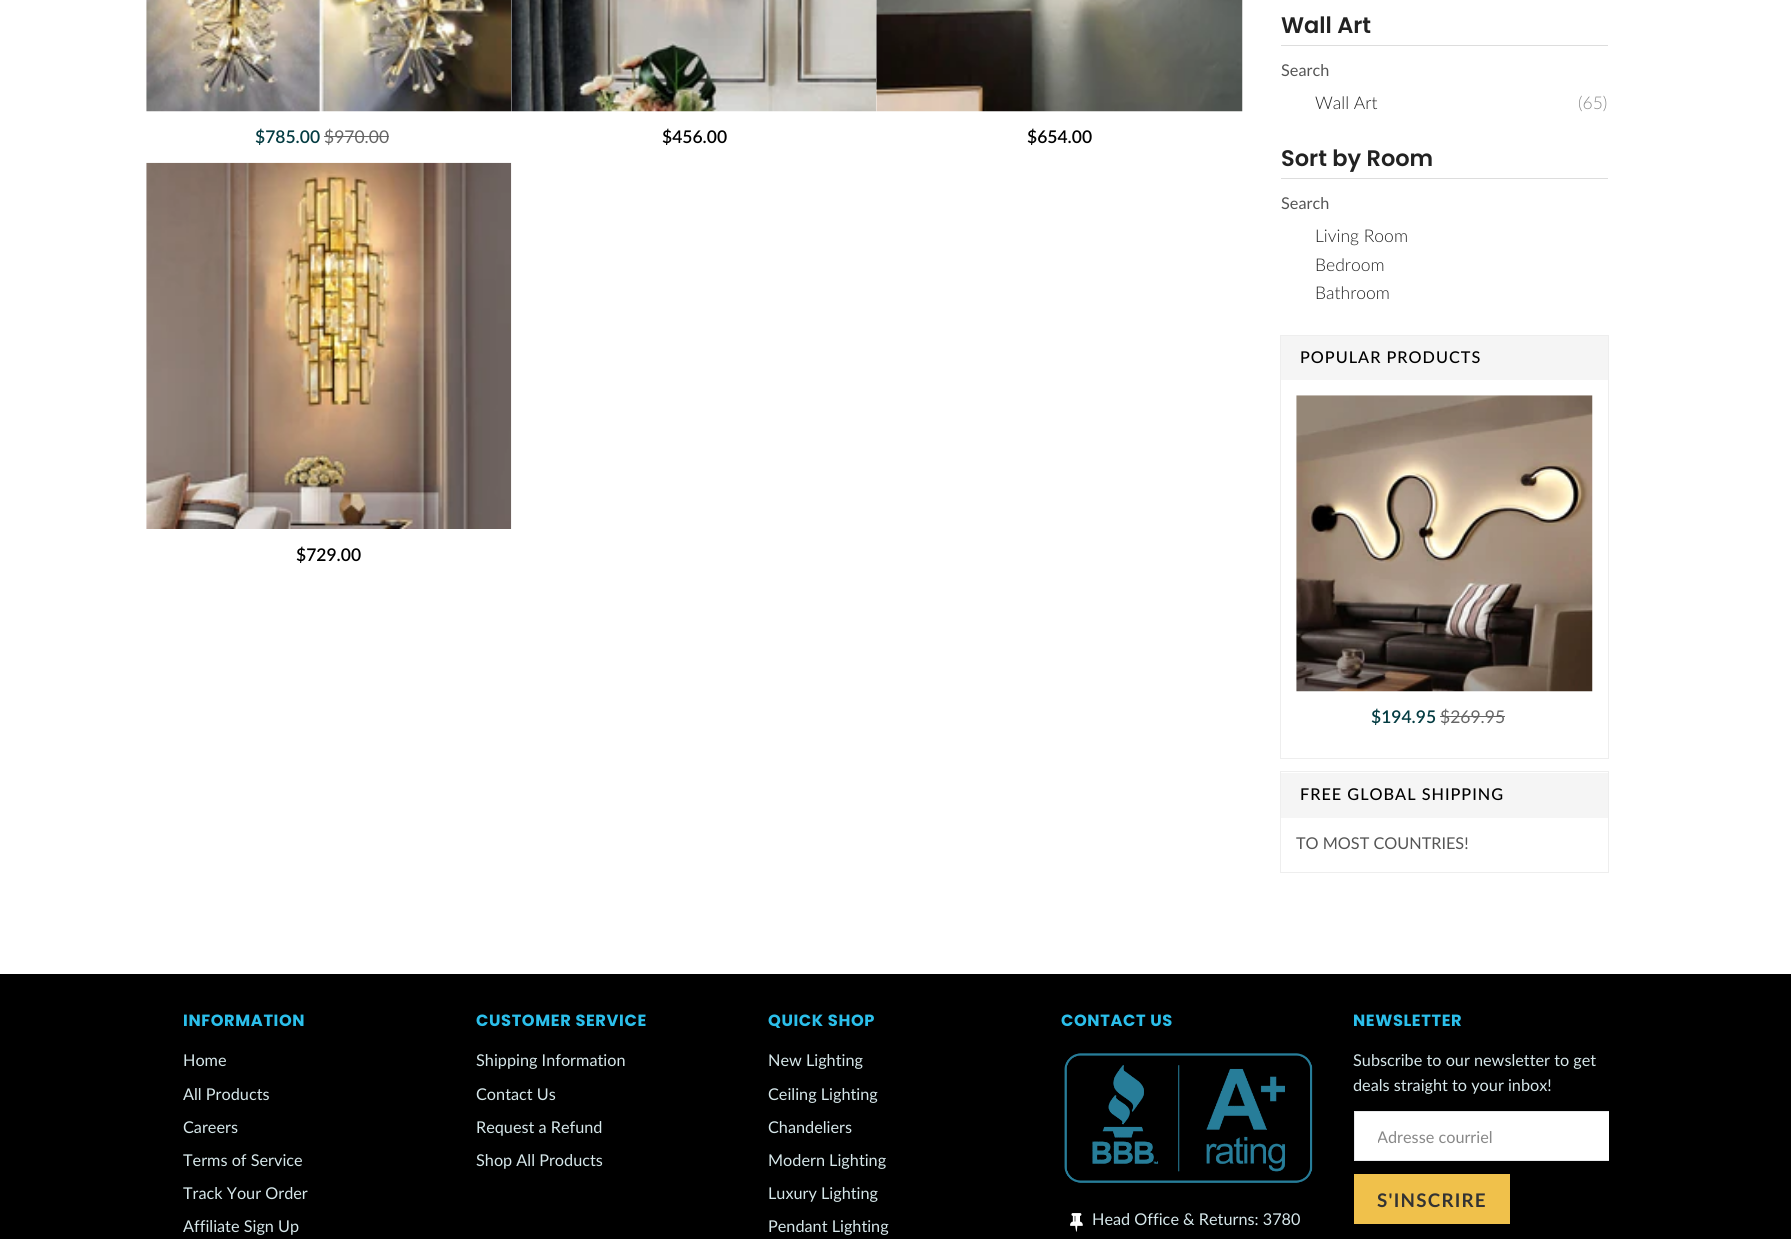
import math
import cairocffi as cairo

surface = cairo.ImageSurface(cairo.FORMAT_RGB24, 1791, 1239)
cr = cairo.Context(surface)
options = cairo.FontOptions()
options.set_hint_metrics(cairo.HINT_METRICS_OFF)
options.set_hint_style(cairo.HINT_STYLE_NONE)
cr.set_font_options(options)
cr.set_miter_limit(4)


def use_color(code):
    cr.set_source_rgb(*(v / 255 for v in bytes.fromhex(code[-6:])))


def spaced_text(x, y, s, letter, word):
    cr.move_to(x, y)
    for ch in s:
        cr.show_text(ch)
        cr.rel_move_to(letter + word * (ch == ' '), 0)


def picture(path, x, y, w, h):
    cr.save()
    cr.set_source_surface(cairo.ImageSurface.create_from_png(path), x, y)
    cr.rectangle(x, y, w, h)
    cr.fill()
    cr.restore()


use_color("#ffffff")
cr.paint()
picture("img1.png", 146, 0, 366, 112)
cr.select_font_face("Lato SemiBold")
cr.set_font_size(17.5)
use_color("#043c42")
cr.move_to(255, 143)
cr.show_text("$785.00")
cr.select_font_face("Lato")
use_color("#666666")
cr.move_to(324, 143)
cr.show_text("$970.00")
cr.rectangle(324, 136, 65, 1)
cr.fill()
picture("img2.png", 511, 0, 366, 112)
cr.select_font_face("Lato SemiBold")
use_color("#000000")
cr.move_to(662, 143)
cr.show_text("$456.00")
picture("img3.png", 876, 0, 367, 112)
cr.move_to(1027, 143)
cr.show_text("$654.00")
picture("img4.png", 146, 162, 366, 367)
cr.move_to(296, 561)
cr.show_text("$729.00")
use_color("#dddddd")
cr.rectangle(1281, 45, 327, 1)
cr.fill()
cr.select_font_face("Poppins SemiBold")
cr.set_font_size(22.5)
use_color("#222222")
cr.move_to(1281, 33)
cr.show_text("Wall Art")
cr.select_font_face("Lato")
cr.set_font_size(16.25)
use_color("#555555")
cr.move_to(1281, 76)
cr.show_text("Search")
cr.select_font_face("Lato Light")
cr.set_font_size(17.5)
use_color("#222222")
cr.move_to(1315, 109)
cr.show_text("Wall Art")
use_color("#888888")
cr.move_to(1578, 109)
cr.show_text("(65)")
use_color("#dddddd")
cr.rectangle(1281, 178, 327, 1)
cr.fill()
cr.select_font_face("Poppins SemiBold")
cr.set_font_size(22.5)
use_color("#222222")
cr.move_to(1281, 166)
cr.show_text("Sort by Room")
cr.select_font_face("Lato")
cr.set_font_size(16.25)
use_color("#555555")
cr.move_to(1281, 209)
cr.show_text("Search")
cr.select_font_face("Lato Light")
cr.set_font_size(17.5)
use_color("#222222")
cr.move_to(1315, 242)
cr.show_text("Living Room")
cr.move_to(1315, 271)
cr.show_text("Bedroom")
cr.move_to(1315, 299)
cr.show_text("Bathroom")
cr.rectangle(1280.5, 335.5, 328, 423)
use_color("#eeeeee")
cr.set_line_width(1)
cr.stroke()
use_color("#f5f5f5")
cr.rectangle(1281, 336, 327, 44)
cr.fill()
cr.select_font_face("Lato Medium")
cr.set_font_size(16.25)
use_color("#000000")
spaced_text(1300, 363, "POPULAR PRODUCTS", 1, 0)
picture("img5.png", 1296, 395, 297, 297)
cr.select_font_face("Lato SemiBold")
cr.set_font_size(17.5)
use_color("#043c42")
cr.move_to(1371, 723)
cr.show_text("$194.95")
cr.select_font_face("Lato")
use_color("#666666")
cr.move_to(1440, 723)
cr.show_text("$269.95")
cr.rectangle(1440, 716, 65, 1)
cr.fill()
cr.rectangle(1280.5, 771.5, 328, 101)
use_color("#eeeeee")
cr.stroke()
use_color("#f5f5f5")
cr.rectangle(1281, 773, 327, 45)
cr.fill()
cr.select_font_face("Lato Medium")
cr.set_font_size(16.25)
use_color("#000000")
spaced_text(1300, 800, "FREE GLOBAL SHIPPING", 1, 0)
cr.select_font_face("Lato")
use_color("#555555")
cr.move_to(1296, 849)
cr.show_text("TO MOST COUNTRIES!")
use_color("#000000")
cr.rectangle(0, 974, 1791, 265)
cr.fill()
cr.select_font_face("Poppins", cairo.FONT_SLANT_NORMAL, cairo.FONT_WEIGHT_BOLD)
use_color("#2bbfeb")
spaced_text(183, 1026, "INFORMATION", 0.6, 0)
cr.select_font_face("Lato")
use_color("#d6e7ea")
cr.move_to(183, 1066)
cr.show_text("Home")
cr.move_to(183, 1100)
cr.show_text("All Products")
cr.move_to(183, 1133)
cr.show_text("Careers")
cr.move_to(183, 1166)
cr.show_text("Terms of Service")
cr.move_to(183, 1199)
cr.show_text("Track Your Order")
cr.move_to(183, 1232)
cr.show_text("Affiliate Sign Up")
cr.select_font_face("Poppins", cairo.FONT_SLANT_NORMAL, cairo.FONT_WEIGHT_BOLD)
use_color("#2bbfeb")
spaced_text(476, 1026, "CUSTOMER SERVICE", 0.6, 0)
cr.select_font_face("Lato")
use_color("#d6e7ea")
cr.move_to(476, 1066)
cr.show_text("Shipping Information")
cr.move_to(476, 1100)
cr.show_text("Contact Us")
cr.move_to(476, 1133)
cr.show_text("Request a Refund")
cr.move_to(476, 1166)
cr.show_text("Shop All Products")
cr.select_font_face("Poppins", cairo.FONT_SLANT_NORMAL, cairo.FONT_WEIGHT_BOLD)
use_color("#2bbfeb")
spaced_text(768, 1026, "QUICK SHOP", 0.6, 0)
cr.select_font_face("Lato")
use_color("#d6e7ea")
cr.move_to(768, 1066)
cr.show_text("New Lighting")
cr.move_to(768, 1100)
cr.show_text("Ceiling Lighting")
cr.move_to(768, 1133)
cr.show_text("Chandeliers")
cr.move_to(768, 1166)
cr.show_text("Modern Lighting")
cr.move_to(768, 1199)
cr.show_text("Luxury Lighting")
cr.move_to(768, 1232)
cr.show_text("Pendant Lighting")
cr.select_font_face("Poppins", cairo.FONT_SLANT_NORMAL, cairo.FONT_WEIGHT_BOLD)
use_color("#2bbfeb")
spaced_text(1061, 1026, "CONTACT US", 0.6, 0)
picture("img6.png", 1064, 1053, 249, 130)
picture("img7.png", 1070, 1213, 13, 19)
cr.select_font_face("Lato")
use_color("#d6e7ea")
cr.move_to(1092, 1225)
cr.show_text("Head Office & Returns: 3780")
cr.select_font_face("Poppins", cairo.FONT_SLANT_NORMAL, cairo.FONT_WEIGHT_BOLD)
use_color("#2bbfeb")
spaced_text(1353, 1026, "NEWSLETTER", 0.6, 0)
cr.select_font_face("Lato")
use_color("#d6e7ea")
cr.move_to(1353, 1066)
cr.show_text("Subscribe to our newsletter to get")
cr.move_to(1353, 1091)
cr.show_text("deals straight to your inbox!")
use_color("#ffffff")
cr.rectangle(1355, 1112, 254, 48)
cr.fill()
use_color("#e8e9eb")
cr.rectangle(1354, 1111, 255, 1)
cr.fill()
cr.rectangle(1354, 1160, 255, 1)
cr.fill()
cr.rectangle(1354, 1111, 1, 50)
cr.fill()
cr.save()
cr.rectangle(1378, 1126, 208, 20)
cr.clip()
use_color("#888888")
cr.move_to(1377, 1143)
cr.show_text("Adresse courriel")
cr.restore()
use_color("#f0c14b")
cr.rectangle(1354, 1174, 156, 50)
cr.fill()
cr.select_font_face("Lato", cairo.FONT_SLANT_NORMAL, cairo.FONT_WEIGHT_BOLD)
cr.set_font_size(18.75)
use_color("#333333")
spaced_text(1377, 1207, "S'INSCRIRE", 1.25, 0)
surface.write_to_png("result.png")
